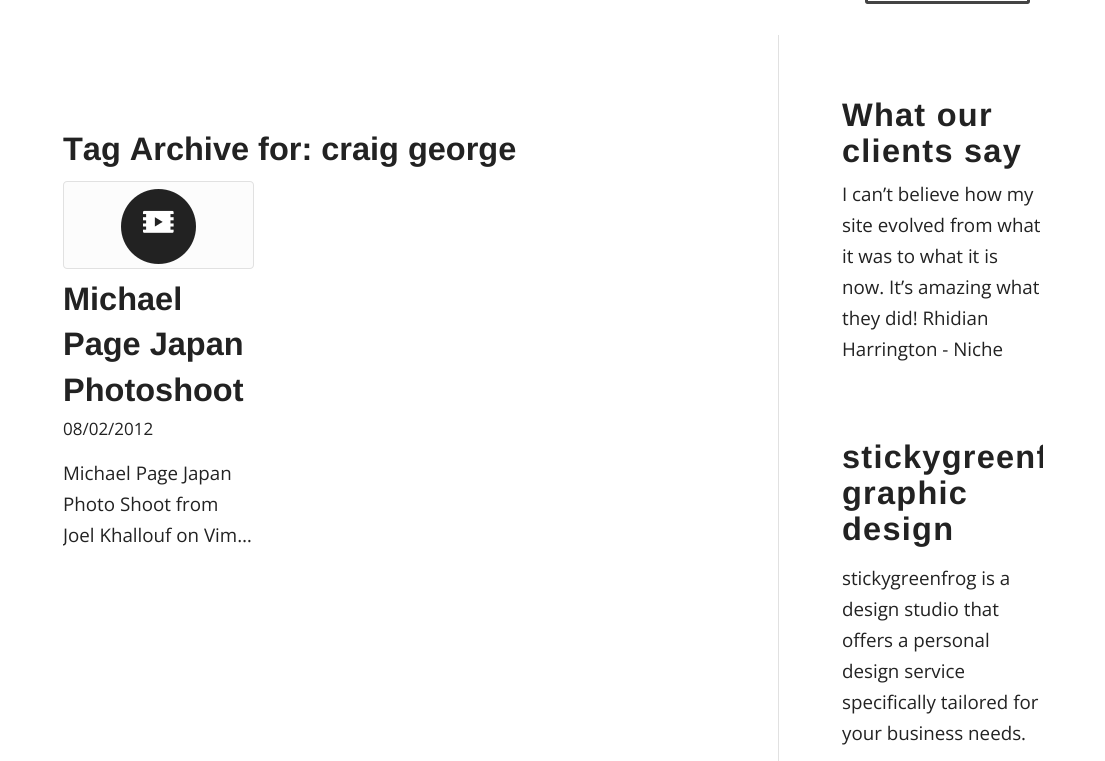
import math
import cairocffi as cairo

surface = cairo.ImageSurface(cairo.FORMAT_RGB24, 1105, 761)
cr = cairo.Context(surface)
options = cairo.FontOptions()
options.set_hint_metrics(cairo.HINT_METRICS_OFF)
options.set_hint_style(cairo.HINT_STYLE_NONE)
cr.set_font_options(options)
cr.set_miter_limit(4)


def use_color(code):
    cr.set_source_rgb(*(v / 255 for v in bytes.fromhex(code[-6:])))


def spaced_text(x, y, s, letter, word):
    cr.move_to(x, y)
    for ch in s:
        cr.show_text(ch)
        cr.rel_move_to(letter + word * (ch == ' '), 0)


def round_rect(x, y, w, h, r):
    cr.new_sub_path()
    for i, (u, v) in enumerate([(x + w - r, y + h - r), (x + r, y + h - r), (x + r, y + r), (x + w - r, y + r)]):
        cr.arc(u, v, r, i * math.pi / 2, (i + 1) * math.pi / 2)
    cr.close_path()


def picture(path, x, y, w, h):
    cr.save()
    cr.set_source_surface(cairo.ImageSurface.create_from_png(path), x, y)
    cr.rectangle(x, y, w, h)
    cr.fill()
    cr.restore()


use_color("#ffffff")
cr.paint()
round_rect(866.5, -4.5, 162, 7, 1)
use_color("#444444")
cr.set_line_width(3)
cr.stroke()
cr.select_font_face("Liberation Sans", cairo.FONT_SLANT_NORMAL, cairo.FONT_WEIGHT_BOLD)
cr.set_font_size(32.5)
use_color("#222222")
cr.move_to(63, 160)
cr.show_text("Tag Archive for: craig george")
use_color("#fcfcfc")
round_rect(63.5, 181.5, 190, 87, 3.5)
cr.fill_preserve()
use_color("#e1e1e1")
cr.set_line_width(1)
cr.stroke()
use_color("#222222")
cr.arc(158.5, 226.5, 37.5, 0, 2 * math.pi)
cr.fill()
picture("img1.png", 143, 210, 31, 23)
cr.move_to(63, 310)
cr.show_text("Michael")
cr.move_to(63, 355)
cr.show_text("Page Japan")
cr.move_to(63, 401)
cr.show_text("Photoshoot")
cr.select_font_face("Open Sans")
cr.set_font_size(17)
cr.move_to(63, 435)
cr.show_text("08/02/2012")
cr.set_font_size(18.75)
cr.move_to(63, 480)
cr.show_text("Michael Page Japan")
cr.move_to(63, 511)
cr.show_text("Photo Shoot from")
cr.save()
cr.rectangle(63, 458, 191, 92)
cr.clip()
cr.move_to(63, 542)
cr.show_text("Joel Khallouf on Vim…")
cr.restore()
use_color("#e1e1e1")
cr.rectangle(778, 35, 1, 726)
cr.fill()
cr.select_font_face("Liberation Sans", cairo.FONT_SLANT_NORMAL, cairo.FONT_WEIGHT_BOLD)
cr.set_font_size(32.5)
use_color("#222222")
spaced_text(842, 126, "What our", 1.25, 0)
spaced_text(842, 162, "clients say", 1.25, 0)
cr.select_font_face("Open Sans")
cr.set_font_size(18.75)
cr.move_to(842, 201)
cr.show_text("I can’t believe how my")
cr.move_to(842, 232)
cr.show_text("site evolved from what")
cr.move_to(842, 263)
cr.show_text("it was to what it is")
cr.move_to(842, 294)
cr.show_text("now. It’s amazing what")
cr.move_to(842, 325)
cr.show_text("they did! Rhidian")
cr.move_to(842, 356)
cr.show_text("Harrington - Niche")
cr.save()
cr.rectangle(779, 35, 264, 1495)
cr.clip()
cr.select_font_face("Liberation Sans", cairo.FONT_SLANT_NORMAL, cairo.FONT_WEIGHT_BOLD)
cr.set_font_size(32.5)
spaced_text(842, 468, "stickygreenf", 1.25, 0)
cr.restore()
cr.select_font_face("Liberation Sans", cairo.FONT_SLANT_NORMAL, cairo.FONT_WEIGHT_BOLD)
cr.set_font_size(32.5)
spaced_text(842, 504, "graphic", 1.25, 0)
spaced_text(842, 540, "design", 1.25, 0)
cr.select_font_face("Open Sans")
cr.set_font_size(18.75)
cr.move_to(842, 585)
cr.show_text("stickygreenfrog is a")
cr.move_to(842, 616)
cr.show_text("design studio that")
cr.move_to(842, 647)
cr.show_text("offers a personal")
cr.move_to(842, 678)
cr.show_text("design service")
cr.move_to(842, 709)
cr.show_text("specifically tailored for")
cr.move_to(842, 740)
cr.show_text("your business needs.")
surface.write_to_png("result.png")
